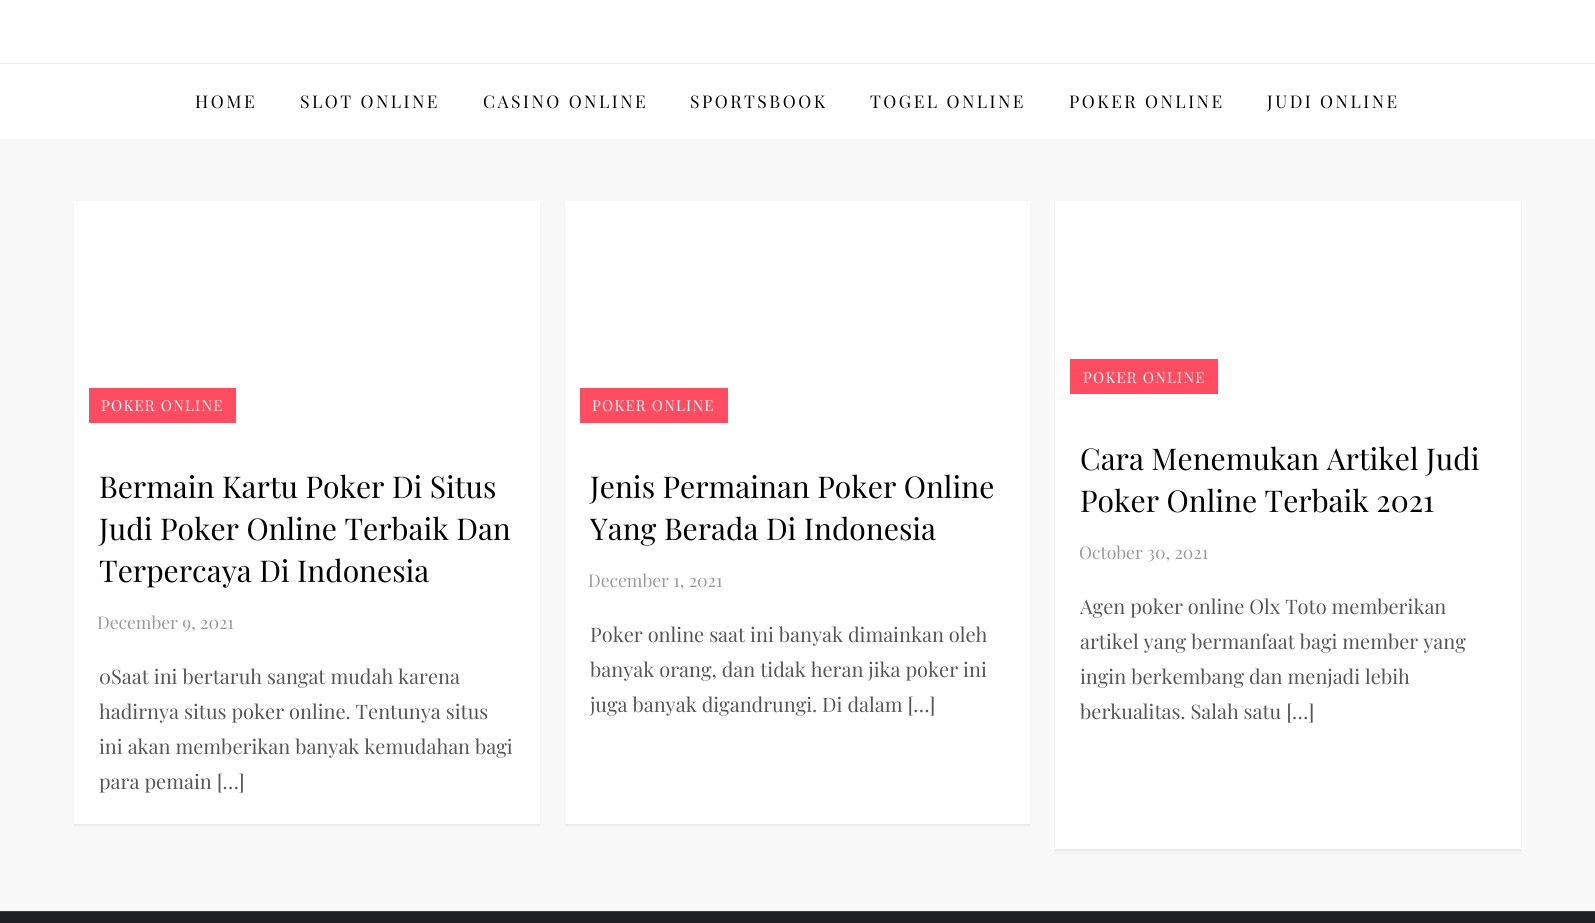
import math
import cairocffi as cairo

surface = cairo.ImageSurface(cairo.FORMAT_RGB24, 1595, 923)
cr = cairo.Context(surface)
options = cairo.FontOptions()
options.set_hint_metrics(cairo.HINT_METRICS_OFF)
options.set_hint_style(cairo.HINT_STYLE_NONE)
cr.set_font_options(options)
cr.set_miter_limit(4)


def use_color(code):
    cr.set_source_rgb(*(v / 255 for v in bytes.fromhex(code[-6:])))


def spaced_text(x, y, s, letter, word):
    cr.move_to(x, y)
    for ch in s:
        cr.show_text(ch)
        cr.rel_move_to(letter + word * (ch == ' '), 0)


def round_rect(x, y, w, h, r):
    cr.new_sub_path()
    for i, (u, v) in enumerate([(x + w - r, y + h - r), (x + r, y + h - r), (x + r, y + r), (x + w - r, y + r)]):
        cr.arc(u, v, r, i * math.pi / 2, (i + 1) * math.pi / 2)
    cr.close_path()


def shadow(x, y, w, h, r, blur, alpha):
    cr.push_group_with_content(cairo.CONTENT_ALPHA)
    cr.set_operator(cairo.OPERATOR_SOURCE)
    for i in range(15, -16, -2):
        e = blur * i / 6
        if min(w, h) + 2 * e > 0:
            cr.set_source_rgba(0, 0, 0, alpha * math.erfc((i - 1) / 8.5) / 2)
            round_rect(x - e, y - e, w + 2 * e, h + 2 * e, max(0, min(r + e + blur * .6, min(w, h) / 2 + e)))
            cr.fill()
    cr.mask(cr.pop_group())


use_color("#f8f8f8")
cr.paint()
use_color("#ffffff")
cr.rectangle(0, 0, 1595, 139)
cr.fill()
use_color("#eeeeee")
cr.rectangle(0, 63, 1595, 1)
cr.fill()
cr.select_font_face("Playfair Display")
cr.set_font_size(17.5)
use_color("#000000")
spaced_text(195, 108, "HOME", 2.5, 0)
spaced_text(300, 108, "SLOT ONLINE", 2.5, 0)
spaced_text(483, 108, "CASINO ONLINE", 2.5, 0)
spaced_text(690, 108, "SPORTSBOOK", 2.5, 0)
spaced_text(870, 108, "TOGEL ONLINE", 2.5, 0)
spaced_text(1069, 108, "POKER ONLINE", 2.5, 0)
spaced_text(1267, 108, "JUDI ONLINE", 2.5, 0)
use_color("#000000")
shadow(74, 204, 466, 622, 0, 1, 0.06)
use_color("#ffffff")
cr.rectangle(74, 201, 466, 623)
cr.fill()
use_color("#ff4c60")
cr.rectangle(89, 388, 147, 35)
cr.fill()
cr.set_font_size(15)
use_color("#ffffff")
spaced_text(101, 411, "POKER ONLINE", 1.25, 0)
cr.set_font_size(30)
use_color("#000000")
cr.move_to(99, 498)
cr.show_text("Bermain Kartu Poker Di Situs")
cr.move_to(99, 540)
cr.show_text("Judi Poker Online Terbaik Dan")
cr.move_to(99, 582)
cr.show_text("Terpercaya Di Indonesia")
cr.set_font_size(17.5)
use_color("#999999")
cr.move_to(97, 629)
cr.show_text("December 9, 2021")
cr.set_font_size(20)
use_color("#555555")
cr.move_to(99, 684)
cr.show_text("0Saat ini bertaruh sangat mudah karena")
cr.move_to(99, 719)
cr.show_text("hadirnya situs poker online. Tentunya situs")
cr.move_to(99, 754)
cr.show_text("ini akan memberikan banyak kemudahan bagi")
cr.move_to(99, 789)
cr.show_text("para pemain […]")
use_color("#000000")
shadow(565, 204, 465, 622, 0, 1, 0.06)
use_color("#ffffff")
cr.rectangle(565, 201, 465, 623)
cr.fill()
use_color("#ff4c60")
cr.rectangle(580, 388, 148, 35)
cr.fill()
cr.set_font_size(15)
use_color("#ffffff")
spaced_text(592, 411, "POKER ONLINE", 1.25, 0)
cr.set_font_size(30)
use_color("#000000")
cr.move_to(590, 498)
cr.show_text("Jenis Permainan Poker Online")
cr.move_to(590, 540)
cr.show_text("Yang Berada Di Indonesia")
cr.set_font_size(17.5)
use_color("#999999")
cr.move_to(588, 587)
cr.show_text("December 1, 2021")
cr.set_font_size(20)
use_color("#555555")
cr.move_to(590, 642)
cr.show_text("Poker online saat ini banyak dimainkan oleh")
cr.move_to(590, 677)
cr.show_text("banyak orang, dan tidak heran jika poker ini")
cr.move_to(590, 712)
cr.show_text("juga banyak digandrungi. Di dalam […]")
use_color("#000000")
shadow(1055, 204, 466, 647, 0, 1, 0.06)
use_color("#ffffff")
cr.rectangle(1055, 201, 466, 648)
cr.fill()
use_color("#ff4c60")
cr.rectangle(1070, 359, 148, 35)
cr.fill()
cr.set_font_size(15)
use_color("#ffffff")
spaced_text(1083, 383, "POKER ONLINE", 1.25, 0)
cr.set_font_size(30)
use_color("#000000")
cr.move_to(1080, 470)
cr.show_text("Cara Menemukan Artikel Judi")
cr.move_to(1080, 512)
cr.show_text("Poker Online Terbaik 2021")
cr.set_font_size(17.5)
use_color("#999999")
cr.move_to(1079, 559)
cr.show_text("October 30, 2021")
cr.set_font_size(20)
use_color("#555555")
cr.move_to(1080, 614)
cr.show_text("Agen poker online Olx Toto memberikan")
cr.move_to(1080, 649)
cr.show_text("artikel yang bermanfaat bagi member yang")
cr.move_to(1080, 684)
cr.show_text("ingin berkembang dan menjadi lebih")
cr.move_to(1080, 719)
cr.show_text("berkualitas. Salah satu […]")
use_color("#1d2024")
cr.rectangle(0, 912, 1595, 11)
cr.fill()
use_color("#3f4145")
cr.rectangle(0, 911, 1595, 1)
cr.fill()
surface.write_to_png("result.png")
